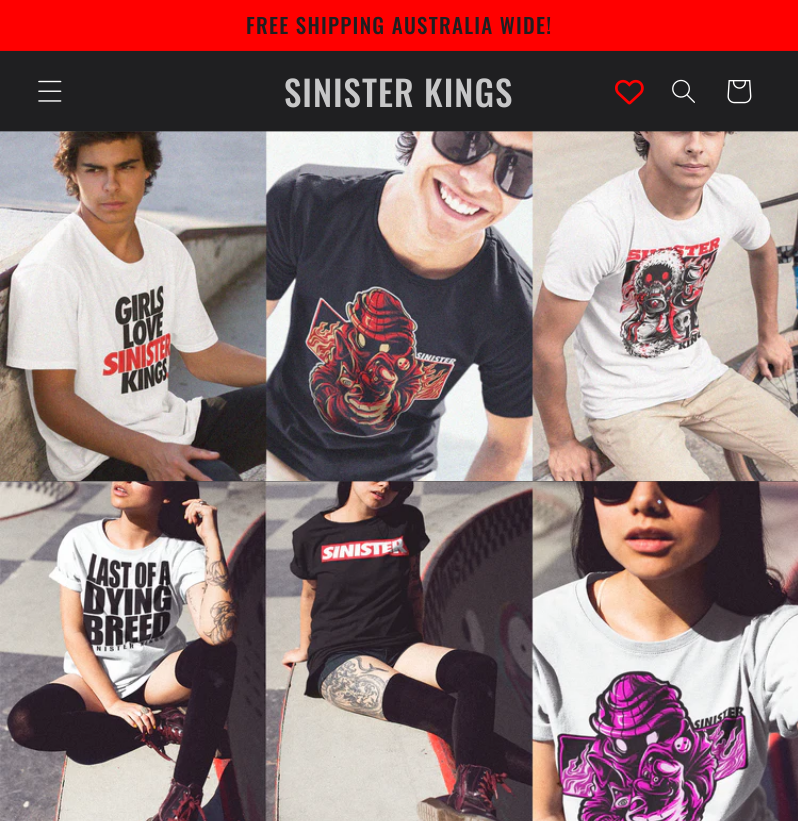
import math
import cairocffi as cairo

surface = cairo.ImageSurface(cairo.FORMAT_RGB24, 798, 821)
cr = cairo.Context(surface)
options = cairo.FontOptions()
options.set_hint_metrics(cairo.HINT_METRICS_OFF)
options.set_hint_style(cairo.HINT_STYLE_NONE)
cr.set_font_options(options)
cr.set_miter_limit(4)


def use_color(code):
    cr.set_source_rgb(*(v / 255 for v in bytes.fromhex(code[-6:])))


def spaced_text(x, y, s, letter, word):
    cr.move_to(x, y)
    for ch in s:
        cr.show_text(ch)
        cr.rel_move_to(letter + word * (ch == ' '), 0)


def picture(path, x, y, w, h):
    cr.save()
    cr.set_source_surface(cairo.ImageSurface.create_from_png(path), x, y)
    cr.rectangle(x, y, w, h)
    cr.fill()
    cr.restore()


use_color("#1f1f21")
cr.paint()
use_color("#ff0000")
cr.rectangle(0, 0, 798, 50)
cr.fill()
use_color("#ed0203")
cr.rectangle(0, 50, 798, 1)
cr.fill()
cr.select_font_face("Oswald Medium")
cr.set_font_size(21)
use_color("#1f1f21")
spaced_text(246, 34, "FREE SHIPPING AUSTRALIA WIDE!", 1.25, 0)
picture("img1.png", 38, 80, 24, 22)
cr.set_font_size(35)
use_color("#c7c7c8")
spaced_text(284, 107, "SINISTER KINGS", 1, 0)
picture("img2.png", 615, 79, 29, 26)
picture("img3.png", 672, 79, 23, 24)
picture("img4.png", 727, 80, 25, 24)
use_color("#353537")
cr.rectangle(0, 131, 798, 1)
cr.fill()
picture("img5.png", 0, 131, 798, 351)
cr.set_source_rgba(1, 1, 1, 0.1)
cr.rectangle(0, 481, 798, 1)
cr.fill()
picture("img6.png", 0, 481, 798, 340)
surface.write_to_png("result.png")
